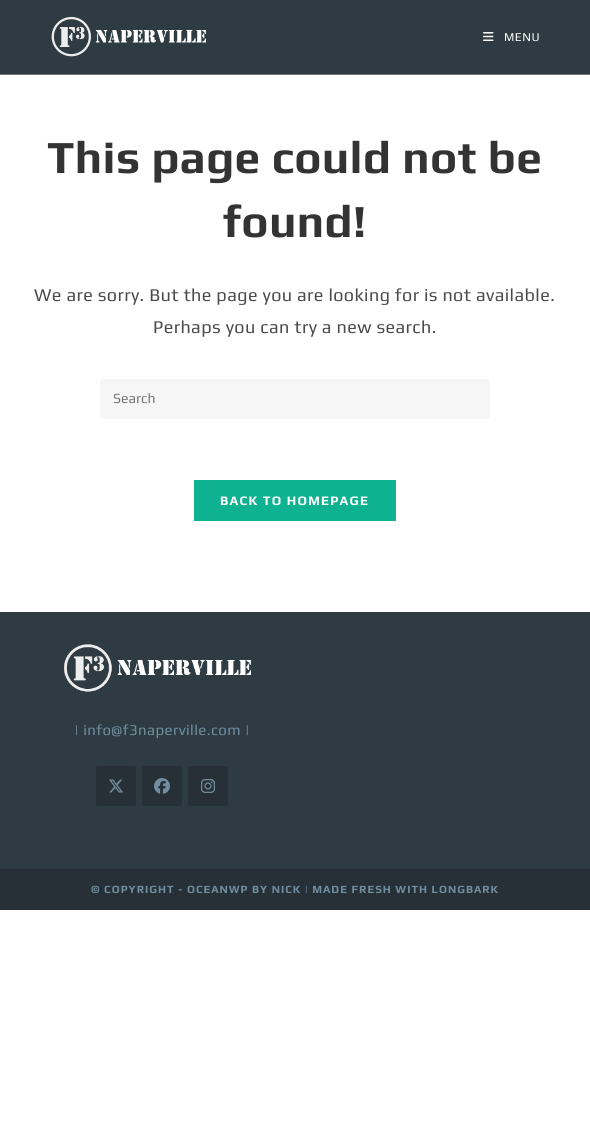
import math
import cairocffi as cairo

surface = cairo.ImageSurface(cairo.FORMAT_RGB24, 590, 1124)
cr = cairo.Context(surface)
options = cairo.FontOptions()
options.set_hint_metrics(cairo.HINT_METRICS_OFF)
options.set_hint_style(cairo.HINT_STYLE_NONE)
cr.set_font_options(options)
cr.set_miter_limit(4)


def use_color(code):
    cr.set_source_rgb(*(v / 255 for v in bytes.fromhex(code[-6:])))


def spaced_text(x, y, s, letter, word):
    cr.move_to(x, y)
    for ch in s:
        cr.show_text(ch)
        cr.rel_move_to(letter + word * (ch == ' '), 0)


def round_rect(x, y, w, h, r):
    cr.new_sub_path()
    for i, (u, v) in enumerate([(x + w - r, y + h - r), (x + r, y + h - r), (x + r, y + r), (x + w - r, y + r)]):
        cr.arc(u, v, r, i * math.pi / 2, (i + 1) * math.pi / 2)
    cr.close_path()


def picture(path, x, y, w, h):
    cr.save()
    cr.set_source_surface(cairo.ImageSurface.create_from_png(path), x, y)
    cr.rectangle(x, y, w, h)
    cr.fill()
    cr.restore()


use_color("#ffffff")
cr.paint()
use_color("#2e3b42")
cr.rectangle(0, 0, 590, 74)
cr.fill()
use_color("#6d767b")
cr.rectangle(0, 74, 590, 1)
cr.fill()
picture("img1.png", 51, 16, 155, 41)
picture("img2.png", 483, 32, 11, 9)
cr.select_font_face("Play")
cr.set_font_size(12)
use_color("#ffffff")
spaced_text(504, 41, "MENU", 0.5, 0)
cr.select_font_face("Play", cairo.FONT_SLANT_NORMAL, cairo.FONT_WEIGHT_BOLD)
cr.set_font_size(46)
use_color("#333333")
spaced_text(47, 173, "This page could not be", 0.4, 0)
spaced_text(223, 237, "found!", 0.4, 0)
cr.select_font_face("Play")
cr.set_font_size(18)
use_color("#4a4a4a")
spaced_text(34, 301, "We are sorry. But the page you are looking for is not available.", 0.4, 0)
spaced_text(153, 333, "Perhaps you can try a new search.", 0.4, 0)
use_color("#f6f6f6")
round_rect(100, 379, 390, 40, 3)
cr.fill()
cr.set_font_size(14)
use_color("#757575")
cr.move_to(113, 403)
cr.show_text("Search")
use_color("#0eb290")
cr.rectangle(194, 480, 202, 41)
cr.fill()
cr.select_font_face("Play", cairo.FONT_SLANT_NORMAL, cairo.FONT_WEIGHT_BOLD)
cr.set_font_size(13)
use_color("#ffffff")
spaced_text(220, 505, "BACK TO HOMEPAGE", 1.25, 0)
use_color("#2e3b42")
cr.rectangle(0, 612, 590, 257)
cr.fill()
picture("img3.png", 64, 644, 188, 48)
cr.select_font_face("Play")
cr.set_font_size(15)
use_color("#708e9f")
spaced_text(74, 735, "| info@f3naperville.com |", 0.4, 0)
use_color("#263036")
round_rect(96, 766, 40, 40, 2)
cr.fill()
picture("img4.png", 109, 779, 15, 14)
round_rect(142, 766, 40, 40, 2)
cr.fill()
picture("img5.png", 154, 778, 16, 16)
round_rect(188, 766, 40, 40, 2)
cr.fill()
picture("img6.png", 201, 779, 14, 14)
cr.rectangle(0, 869, 590, 41)
cr.fill()
cr.select_font_face("Play", cairo.FONT_SLANT_NORMAL, cairo.FONT_WEIGHT_BOLD)
cr.set_font_size(11)
use_color("#708e9f")
spaced_text(91, 893, "© COPYRIGHT - OCEANWP BY NICK | MADE FRESH WITH LONGBARK", 1, 0)
surface.write_to_png("result.png")
